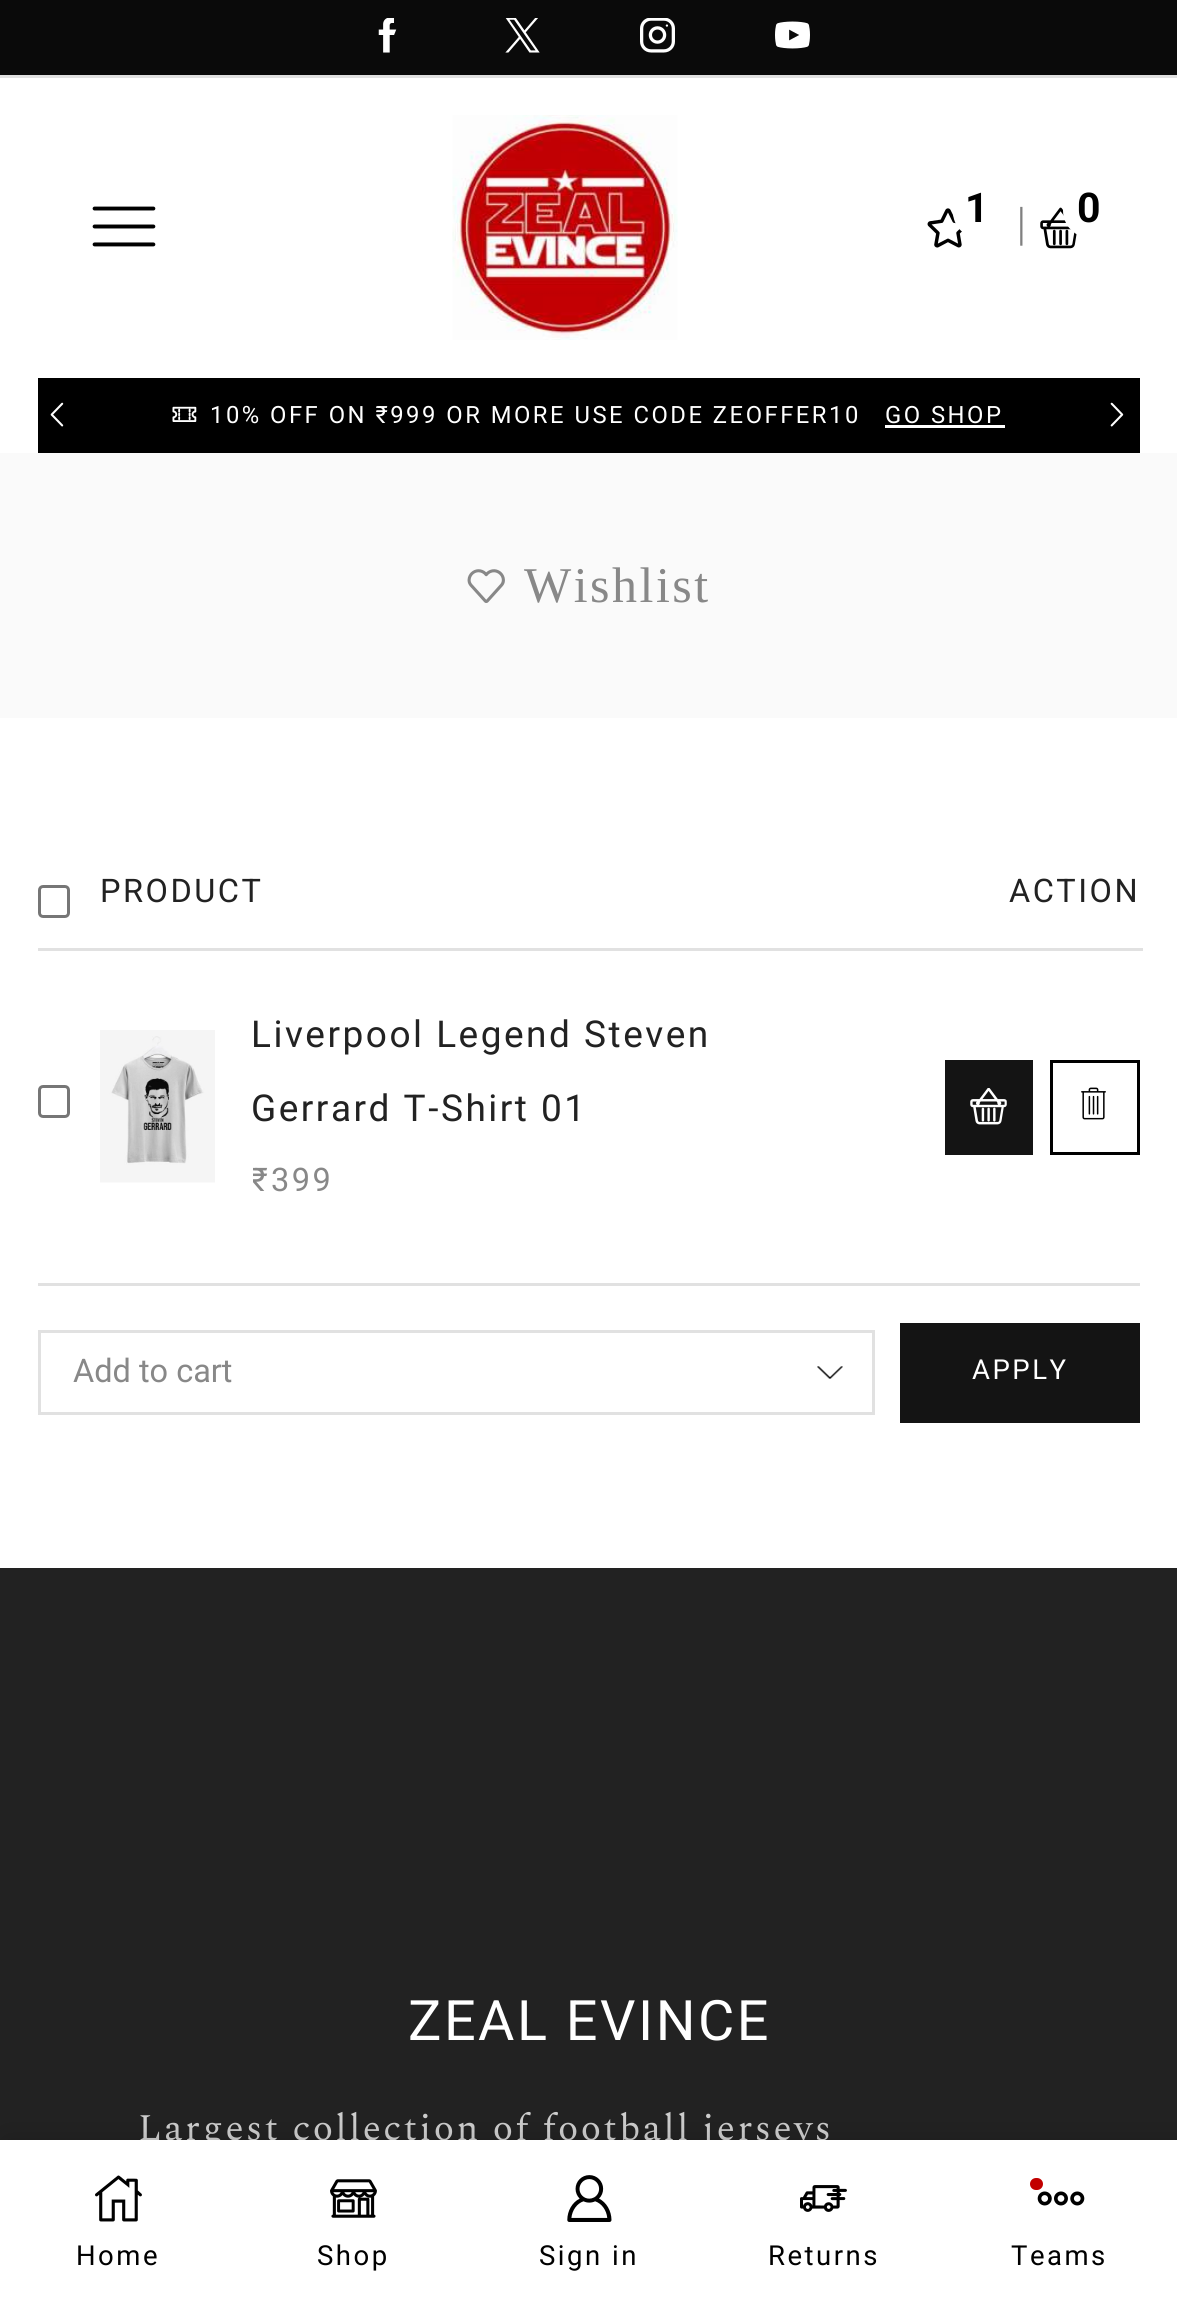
import math
import cairocffi as cairo

surface = cairo.ImageSurface(cairo.FORMAT_RGB24, 1177, 2313)
cr = cairo.Context(surface)
options = cairo.FontOptions()
options.set_hint_metrics(cairo.HINT_METRICS_OFF)
options.set_hint_style(cairo.HINT_STYLE_NONE)
cr.set_font_options(options)
cr.set_miter_limit(4)


def use_color(code):
    cr.set_source_rgb(*(v / 255 for v in bytes.fromhex(code[-6:])))


def spaced_text(x, y, s, letter, word):
    cr.move_to(x, y)
    for ch in s:
        cr.show_text(ch)
        cr.rel_move_to(letter + word * (ch == ' '), 0)


def round_rect(x, y, w, h, r):
    cr.new_sub_path()
    for i, (u, v) in enumerate([(x + w - r, y + h - r), (x + r, y + h - r), (x + r, y + r), (x + w - r, y + r)]):
        cr.arc(u, v, r, i * math.pi / 2, (i + 1) * math.pi / 2)
    cr.close_path()


def shadow(x, y, w, h, r, blur, alpha):
    cr.push_group_with_content(cairo.CONTENT_ALPHA)
    cr.set_operator(cairo.OPERATOR_SOURCE)
    for i in range(15, -16, -2):
        e = blur * i / 6
        if min(w, h) + 2 * e > 0:
            cr.set_source_rgba(0, 0, 0, alpha * math.erfc((i - 1) / 8.5) / 2)
            round_rect(x - e, y - e, w + 2 * e, h + 2 * e, max(0, min(r + e + blur * .6, min(w, h) / 2 + e)))
            cr.fill()
    cr.mask(cr.pop_group())


def picture(path, x, y, w, h):
    cr.save()
    cr.set_source_surface(cairo.ImageSurface.create_from_png(path), x, y)
    cr.rectangle(x, y, w, h)
    cr.fill()
    cr.restore()


use_color("#ffffff")
cr.paint()
use_color("#0a0a0a")
cr.rectangle(0, 0, 1177, 75)
cr.fill()
use_color("#e1e1e1")
cr.rectangle(0, 75, 1177, 3)
cr.fill()
picture("img1.png", 378, 18, 19, 35)
picture("img2.png", 505, 18, 35, 35)
picture("img3.png", 640, 18, 35, 35)
picture("img4.png", 775, 21, 35, 28)
picture("img5.png", 92, 206, 64, 41)
picture("img6.png", 452, 115, 226, 225)
picture("img7.png", 927, 208, 36, 40)
use_color("#ffffff")
round_rect(953, 183, 52, 55, 26)
cr.fill()
cr.select_font_face("Roboto", cairo.FONT_SLANT_NORMAL, cairo.FONT_WEIGHT_BOLD)
cr.set_font_size(41)
use_color("#000000")
spaced_text(965, 222, "1", 2.5, 0)
cr.select_font_face("Liberation Serif", cairo.FONT_SLANT_NORMAL, cairo.FONT_WEIGHT_BOLD)
cr.set_font_size(32)
use_color("#808080")
spaced_text(1010, 236, "│", 2.5, 0)
picture("img8.png", 1040, 207, 37, 42)
use_color("#ffffff")
cr.arc(1090.5, 210.5, 27.5, 0, 2 * math.pi)
cr.fill()
cr.select_font_face("Roboto", cairo.FONT_SLANT_NORMAL, cairo.FONT_WEIGHT_BOLD)
cr.set_font_size(41)
use_color("#000000")
spaced_text(1077, 222, "0", 2.5, 0)
cr.rectangle(38, 378, 1102, 75)
cr.fill()
picture("img9.png", 50, 402, 14, 25)
picture("img10.png", 172, 406, 25, 16)
cr.select_font_face("Roboto")
cr.set_font_size(23.8)
use_color("#ffffff")
spaced_text(210, 423, "10% OFF ON ₹999 OR MORE USE CODE ZEOFFER10", 2.5, 0)
spaced_text(885, 423, "GO SHOP", 2.5, 0)
cr.rectangle(885, 425, 120, 3)
cr.fill()
picture("img11.png", 1110, 402, 14, 25)
use_color("#fafafa")
cr.rectangle(0, 453, 1177, 265)
cr.fill()
picture("img12.png", 467, 569, 38, 34)
cr.select_font_face("Liberation Serif")
cr.set_font_size(50)
use_color("#888888")
spaced_text(524, 602, "Wishlist", 2.5, 0)
use_color("#e1e1e1")
cr.rectangle(38, 948, 1105, 3)
cr.fill()
round_rect(39.5, 886.5, 29, 30, 3.5)
use_color("#767676")
cr.set_line_width(3)
cr.stroke()
cr.select_font_face("Roboto")
cr.set_font_size(32.5)
use_color("#222222")
spaced_text(100, 902, "PRODUCT", 2.5, 0)
spaced_text(1009, 902, "ACTION", 2.5, 0)
round_rect(39.5, 1086.5, 29, 30, 3.5)
use_color("#767676")
cr.stroke()
picture("img13.png", 100, 1030, 115, 153)
cr.set_font_size(37)
use_color("#222222")
spaced_text(251, 1047, "Liverpool Legend Steven", 2.5, 0)
spaced_text(251, 1121, "Gerrard T-Shirt 01", 2.5, 0)
cr.save()
cr.rectangle(253, 1000, 597, 213)
cr.clip()
cr.set_font_size(32.5)
use_color("#888888")
spaced_text(251, 1191, "₹", 2.5, 0)
cr.restore()
cr.set_font_size(32.5)
use_color("#888888")
spaced_text(271, 1191, "399", 2.5, 0)
use_color("#141414")
cr.rectangle(945, 1060, 88, 95)
cr.fill()
picture("img14.png", 970, 1088, 37, 37)
cr.rectangle(1051.5, 1061.5, 87, 92)
use_color("#000000")
cr.stroke()
picture("img15.png", 1081, 1087, 25, 33)
use_color("#e1e1e1")
cr.rectangle(38, 1283, 1102, 3)
cr.fill()
picture("img16.png", 817, 1366, 26, 13)
cr.rectangle(39.5, 1331.5, 834, 82)
cr.stroke()
use_color("#888888")
cr.move_to(73, 1382)
cr.show_text("Add to cart")
use_color("#141414")
cr.rectangle(900, 1323, 240, 100)
cr.fill()
cr.set_font_size(27.5)
use_color("#ffffff")
spaced_text(972, 1379, "APPLY", 2.5, 0)
use_color("#222222")
cr.rectangle(0, 1568, 1177, 572)
cr.fill()
cr.set_font_size(55.75)
use_color("#ffffff")
spaced_text(408, 2040, "ZEAL EVINCE", 2.5, 0)
cr.select_font_face("Spectral SC")
cr.set_font_size(37.5)
use_color("#cdcdcd")
spaced_text(138, 2140, "Largest collection of football jerseys", 2.5, 0)
use_color("#000000")
shadow(5, 2140, 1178, 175, 0, 15, 0.15)
use_color("#ffffff")
cr.rectangle(0, 2140, 1177, 173)
cr.fill()
picture("img17.png", 95, 2175, 47, 47)
cr.select_font_face("Roboto")
cr.set_font_size(27.5)
use_color("#000000")
spaced_text(76, 2265, "Home", 2.5, 0)
picture("img18.png", 330, 2179, 47, 39)
spaced_text(317, 2265, "Shop", 2.5, 0)
picture("img19.png", 567, 2175, 45, 47)
spaced_text(539, 2265, "Sign in", 2.5, 0)
picture("img20.png", 800, 2185, 47, 27)
spaced_text(768, 2265, "Returns", 2.5, 0)
use_color("#c20000")
round_rect(1030, 2178, 13, 12, 6)
cr.fill()
picture("img21.png", 1037, 2191, 48, 15)
use_color("#000000")
spaced_text(1011, 2265, "Teams", 2.5, 0)
surface.write_to_png("result.png")
